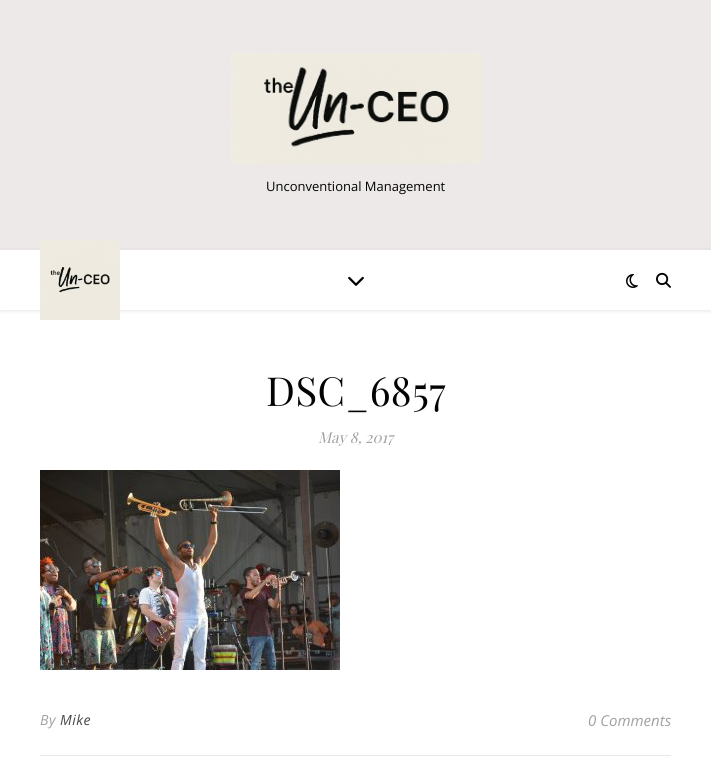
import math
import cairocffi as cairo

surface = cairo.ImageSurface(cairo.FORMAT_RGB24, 711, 778)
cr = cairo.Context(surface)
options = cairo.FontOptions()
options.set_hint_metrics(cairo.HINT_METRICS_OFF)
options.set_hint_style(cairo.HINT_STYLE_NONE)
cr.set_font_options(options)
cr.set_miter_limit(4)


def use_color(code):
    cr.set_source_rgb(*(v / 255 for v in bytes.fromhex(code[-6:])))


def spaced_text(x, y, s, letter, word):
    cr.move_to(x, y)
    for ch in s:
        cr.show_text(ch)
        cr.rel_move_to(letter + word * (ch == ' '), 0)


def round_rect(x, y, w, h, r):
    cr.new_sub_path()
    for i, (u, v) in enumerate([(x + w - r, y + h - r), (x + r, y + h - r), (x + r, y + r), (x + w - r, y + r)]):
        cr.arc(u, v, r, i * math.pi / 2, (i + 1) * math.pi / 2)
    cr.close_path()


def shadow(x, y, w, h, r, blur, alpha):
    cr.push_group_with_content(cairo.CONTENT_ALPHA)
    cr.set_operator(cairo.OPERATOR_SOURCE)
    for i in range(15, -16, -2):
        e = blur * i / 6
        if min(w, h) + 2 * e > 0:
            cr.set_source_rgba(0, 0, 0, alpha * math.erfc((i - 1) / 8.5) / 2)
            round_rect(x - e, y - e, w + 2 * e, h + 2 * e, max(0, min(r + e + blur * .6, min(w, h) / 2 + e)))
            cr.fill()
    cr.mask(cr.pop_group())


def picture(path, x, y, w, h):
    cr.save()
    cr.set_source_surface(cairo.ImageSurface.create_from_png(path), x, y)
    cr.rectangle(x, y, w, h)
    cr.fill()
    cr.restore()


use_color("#ffffff")
cr.paint()
use_color("#ede9e8")
cr.rectangle(0, 0, 711, 250)
cr.fill()
picture("img1.png", 231, 53, 250, 111)
cr.select_font_face("Open Sans")
cr.set_font_size(13)
use_color("#030303")
cr.move_to(266, 191)
cr.show_text("Unconventional Management")
cr.save()
cr.set_fill_rule(cairo.FILL_RULE_EVEN_ODD)
cr.new_path()
cr.move_to(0, 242)
cr.line_to(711, 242)
cr.line_to(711, 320)
cr.line_to(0, 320)
cr.close_path()
cr.move_to(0, 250)
cr.line_to(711, 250)
cr.line_to(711, 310)
cr.line_to(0, 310)
cr.close_path()
cr.clip()
use_color("#000000")
shadow(0, 251, 711, 60, 0, 2.5, 0.1)
cr.restore()
picture("img2.png", 40, 240, 80, 80)
picture("img3.png", 348, 276, 16, 10)
picture("img4.png", 626, 274, 12, 14)
picture("img5.png", 656, 272, 15, 16)
cr.select_font_face("Playfair Display")
cr.set_font_size(40)
spaced_text(266, 406, "DSC_6857", 0.5, 0)
cr.select_font_face("Playfair Display", cairo.FONT_SLANT_ITALIC)
cr.set_font_size(15)
use_color("#a1a1a1")
cr.move_to(318, 443)
cr.show_text("May 8, 2017")
picture("img6.png", 40, 470, 300, 200)
use_color("#e8e8e8")
cr.rectangle(40, 755, 631, 1)
cr.fill()
cr.select_font_face("Open Sans", cairo.FONT_SLANT_ITALIC)
cr.set_font_size(14)
use_color("#a1a1a1")
spaced_text(40, 725, "By", 0.5, 0)
use_color("#464646")
spaced_text(60, 725, "Mike", 0.5, 0)
cr.set_font_size(15)
use_color("#a1a1a1")
cr.move_to(588, 726)
cr.show_text("0 Comments")
surface.write_to_png("result.png")
